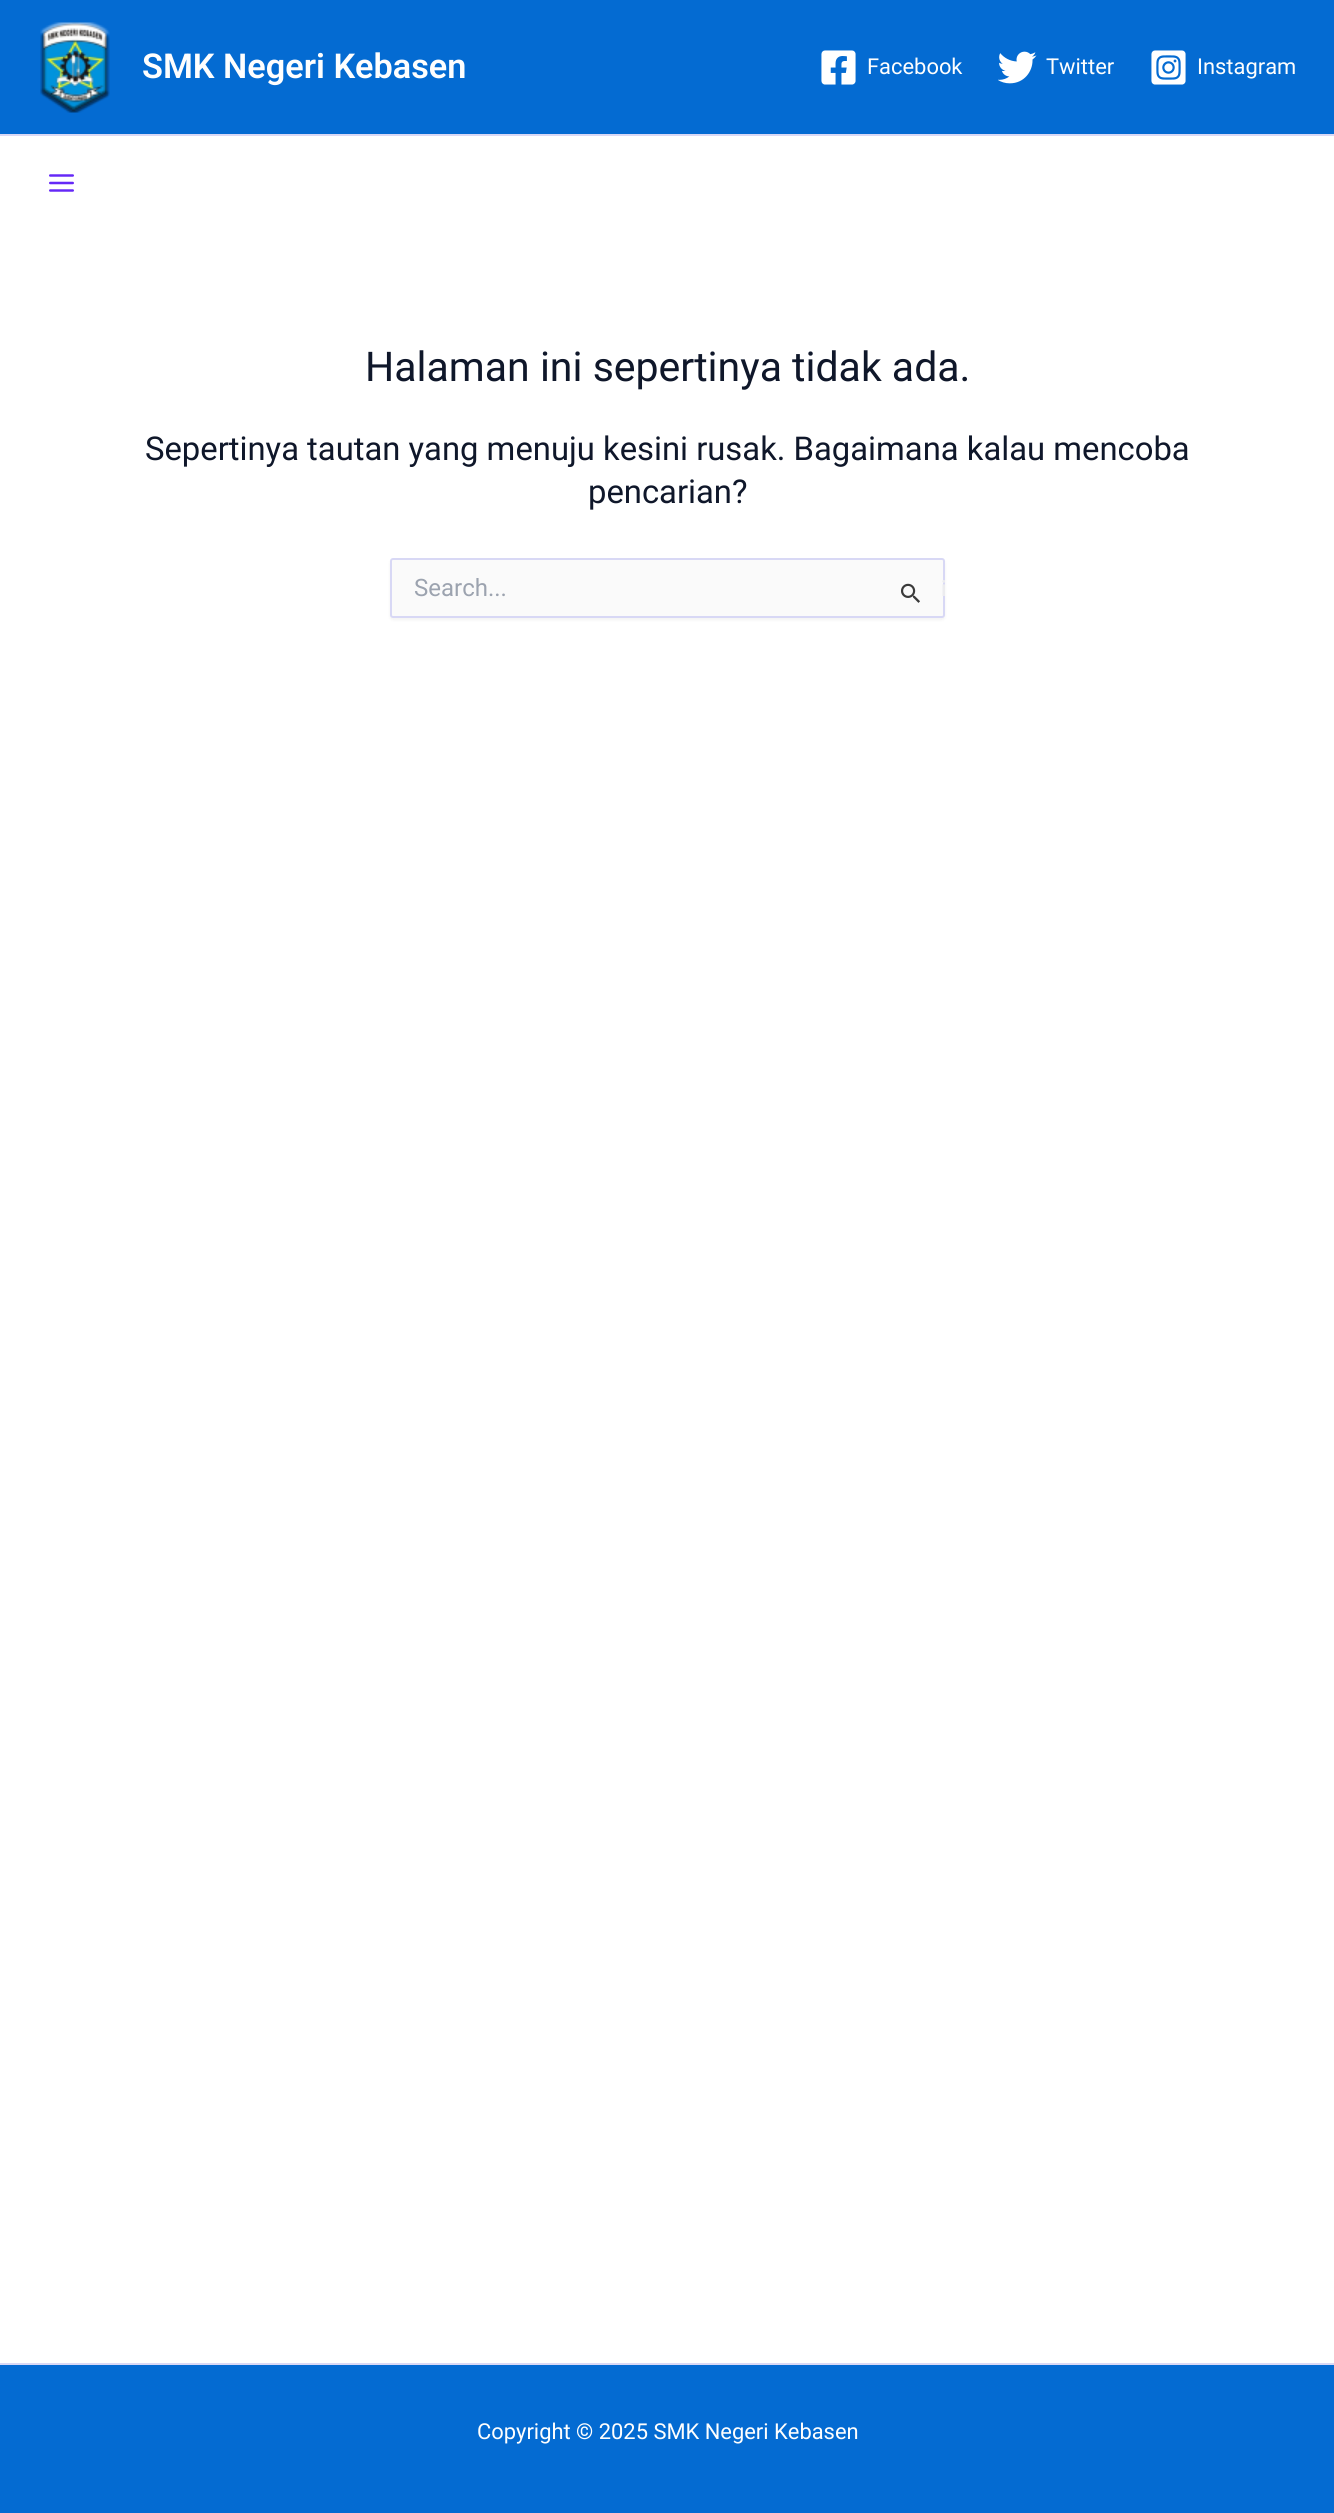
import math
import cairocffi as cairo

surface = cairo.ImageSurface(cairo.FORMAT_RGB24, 1334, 2513)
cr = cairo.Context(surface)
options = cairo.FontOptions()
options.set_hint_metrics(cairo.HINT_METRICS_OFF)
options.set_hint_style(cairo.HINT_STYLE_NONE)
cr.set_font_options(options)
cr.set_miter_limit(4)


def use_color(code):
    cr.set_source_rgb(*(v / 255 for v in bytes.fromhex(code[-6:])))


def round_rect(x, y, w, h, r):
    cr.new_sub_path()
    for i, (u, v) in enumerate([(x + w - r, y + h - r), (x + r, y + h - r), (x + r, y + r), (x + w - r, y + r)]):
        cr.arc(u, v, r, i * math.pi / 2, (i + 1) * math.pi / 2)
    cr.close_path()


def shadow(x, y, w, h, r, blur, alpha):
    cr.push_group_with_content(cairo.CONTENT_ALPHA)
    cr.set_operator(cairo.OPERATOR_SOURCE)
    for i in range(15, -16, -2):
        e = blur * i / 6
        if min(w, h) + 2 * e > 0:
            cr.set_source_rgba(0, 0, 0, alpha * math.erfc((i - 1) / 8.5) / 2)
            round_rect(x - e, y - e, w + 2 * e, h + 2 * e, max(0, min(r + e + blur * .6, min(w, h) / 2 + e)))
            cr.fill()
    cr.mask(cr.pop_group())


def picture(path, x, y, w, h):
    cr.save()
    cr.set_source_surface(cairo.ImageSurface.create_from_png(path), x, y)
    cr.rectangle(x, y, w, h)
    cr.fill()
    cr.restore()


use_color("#ffffff")
cr.paint()
use_color("#046bd2")
cr.rectangle(0, 0, 1334, 134)
cr.fill()
use_color("#d8d8f5")
cr.rectangle(0, 134, 1334, 2)
cr.fill()
picture("img1.png", 40, 22, 70, 91)
cr.select_font_face("Roboto SemiBold")
cr.set_font_size(34.25)
use_color("#fefefe")
cr.move_to(142, 78)
cr.show_text("SMK Negeri Kebasen")
picture("img2.png", 821, 50, 35, 35)
cr.select_font_face("Roboto")
cr.set_font_size(21.9)
cr.move_to(867, 74)
cr.show_text("Facebook")
picture("img3.png", 998, 51, 39, 33)
cr.move_to(1046, 74)
cr.show_text("Twitter")
picture("img4.png", 1151, 50, 35, 35)
cr.move_to(1197, 74)
cr.show_text("Instagram")
picture("img5.png", 49, 174, 25, 18)
cr.set_font_size(41)
use_color("#0f172a")
cr.move_to(365, 381)
cr.show_text("Halaman ini sepertinya tidak ada.")
cr.set_font_size(32.8)
cr.move_to(145, 460)
cr.show_text("Sepertinya tautan yang menuju kesini rusak. Bagaimana kalau mencoba")
cr.move_to(588, 503)
cr.show_text("pencarian?")
use_color("#000000")
shadow(390, 560, 555, 60, 3, 1.5, 0.05)
use_color("#fafafa")
round_rect(391, 559, 553, 58, 2)
cr.fill_preserve()
use_color("#d8d8f5")
cr.stroke()
cr.set_font_size(24)
use_color("#9ca3af")
cr.move_to(414, 596)
cr.show_text("Search...")
picture("img6.png", 901, 583, 19, 20)
cr.save()
round_rect(878, 558, 67, 62, 3)
cr.clip()
cr.select_font_face("Roboto Medium")
cr.set_font_size(21.9)
use_color("#ececef")
cr.move_to(941, 596)
cr.show_text("i")
cr.restore()
use_color("#046bd2")
cr.rectangle(0, 2365, 1334, 148)
cr.fill()
use_color("#d8d8f5")
cr.rectangle(0, 2363, 1334, 2)
cr.fill()
cr.set_font_size(21.9)
use_color("#fefefe")
cr.move_to(477, 2439)
cr.show_text("Copyright © 2025 SMK Negeri Kebasen")
surface.write_to_png("result.png")
